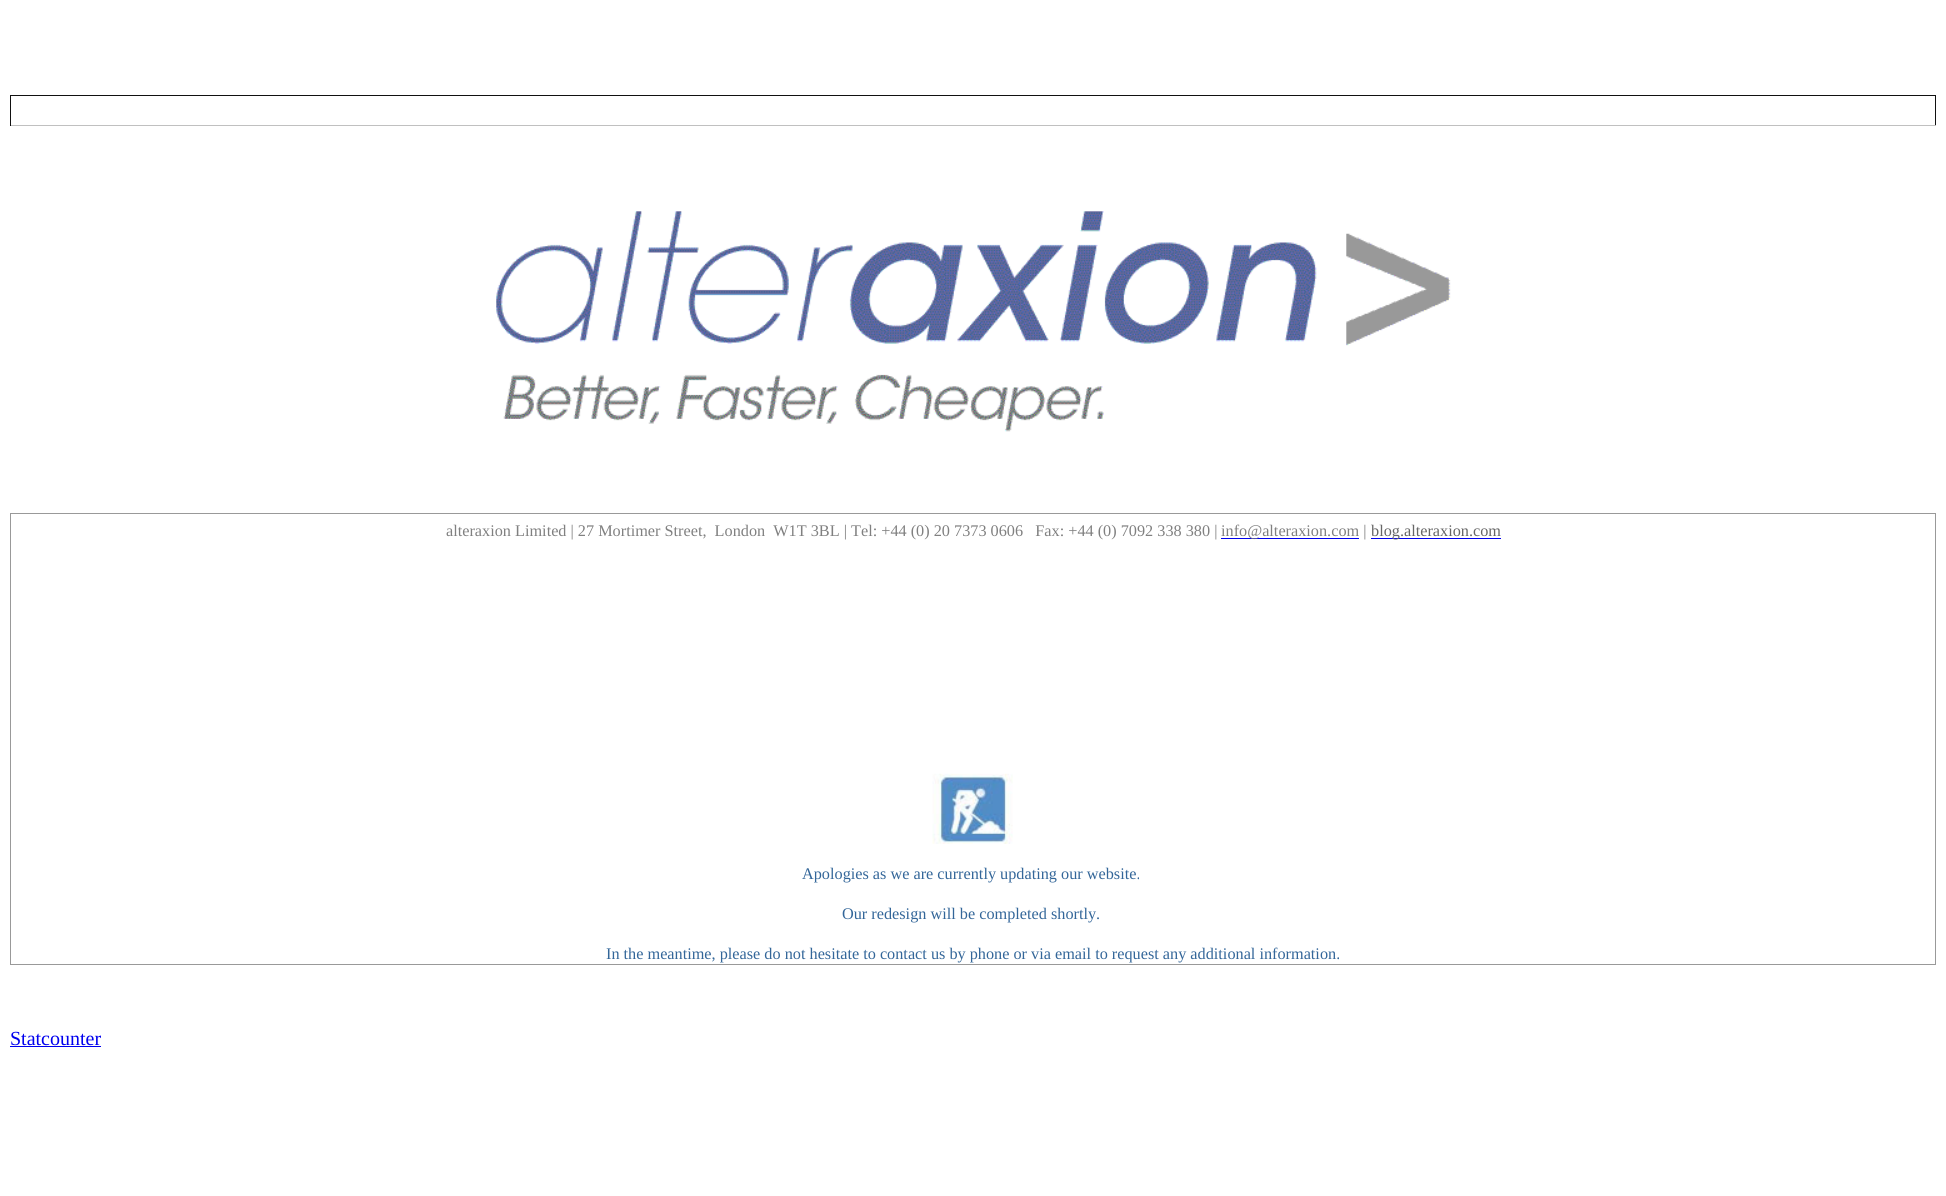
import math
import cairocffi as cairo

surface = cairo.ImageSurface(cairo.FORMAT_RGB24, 1946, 1196)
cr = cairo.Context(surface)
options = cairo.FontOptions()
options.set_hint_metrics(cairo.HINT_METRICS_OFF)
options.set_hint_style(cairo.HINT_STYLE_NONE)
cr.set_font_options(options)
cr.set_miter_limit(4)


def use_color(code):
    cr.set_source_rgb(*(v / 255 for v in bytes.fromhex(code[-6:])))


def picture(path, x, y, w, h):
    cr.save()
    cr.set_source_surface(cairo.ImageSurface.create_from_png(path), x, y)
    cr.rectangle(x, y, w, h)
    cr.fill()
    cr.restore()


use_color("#ffffff")
cr.paint()
use_color("#111111")
cr.rectangle(10, 95, 1926, 1)
cr.fill()
cr.rectangle(1935, 95, 1, 31)
cr.fill()
use_color("#c0c0c0")
cr.rectangle(10, 125, 1926, 1)
cr.fill()
use_color("#111111")
cr.rectangle(10, 95, 1, 31)
cr.fill()
picture("img1.png", 496, 211, 955, 221)
use_color("#999999")
cr.rectangle(10, 513, 1926, 1)
cr.fill()
cr.rectangle(1935, 513, 1, 452)
cr.fill()
cr.rectangle(10, 964, 1926, 1)
cr.fill()
cr.rectangle(10, 513, 1, 452)
cr.fill()
cr.select_font_face("Liberation Serif")
cr.set_font_size(16.25)
use_color("#808080")
cr.move_to(446, 536)
cr.show_text("alteraxion Limited | 27 Mortimer Street,  London  W1T 3BL | Tel: +44 (0) 20 7373 0606   Fax: +44 (0) 7092 338 380 |")
use_color("#0000ee")
cr.rectangle(1221, 538, 138, 1)
cr.fill()
use_color("#808080")
cr.move_to(1221, 536)
cr.show_text("info@alteraxion.com |")
use_color("#0000ee")
cr.rectangle(1371, 538, 130, 1)
cr.fill()
use_color("#666666")
cr.move_to(1371, 536)
cr.show_text("blog.alteraxion.com")
picture("img2.png", 932, 773, 81, 71)
use_color("#336699")
cr.move_to(802, 879)
cr.show_text("Apologies as we are currently updating our website.")
cr.move_to(842, 919)
cr.show_text("Our redesign will be completed shortly.")
cr.move_to(606, 959)
cr.show_text("In the meantime, please do not hesitate to contact us by phone or via email to request any additional information.")
cr.set_font_size(20)
use_color("#0000ee")
cr.move_to(10, 1045)
cr.show_text("Statcounter")
cr.rectangle(10, 1046, 91, 1)
cr.fill()
surface.write_to_png("result.png")
